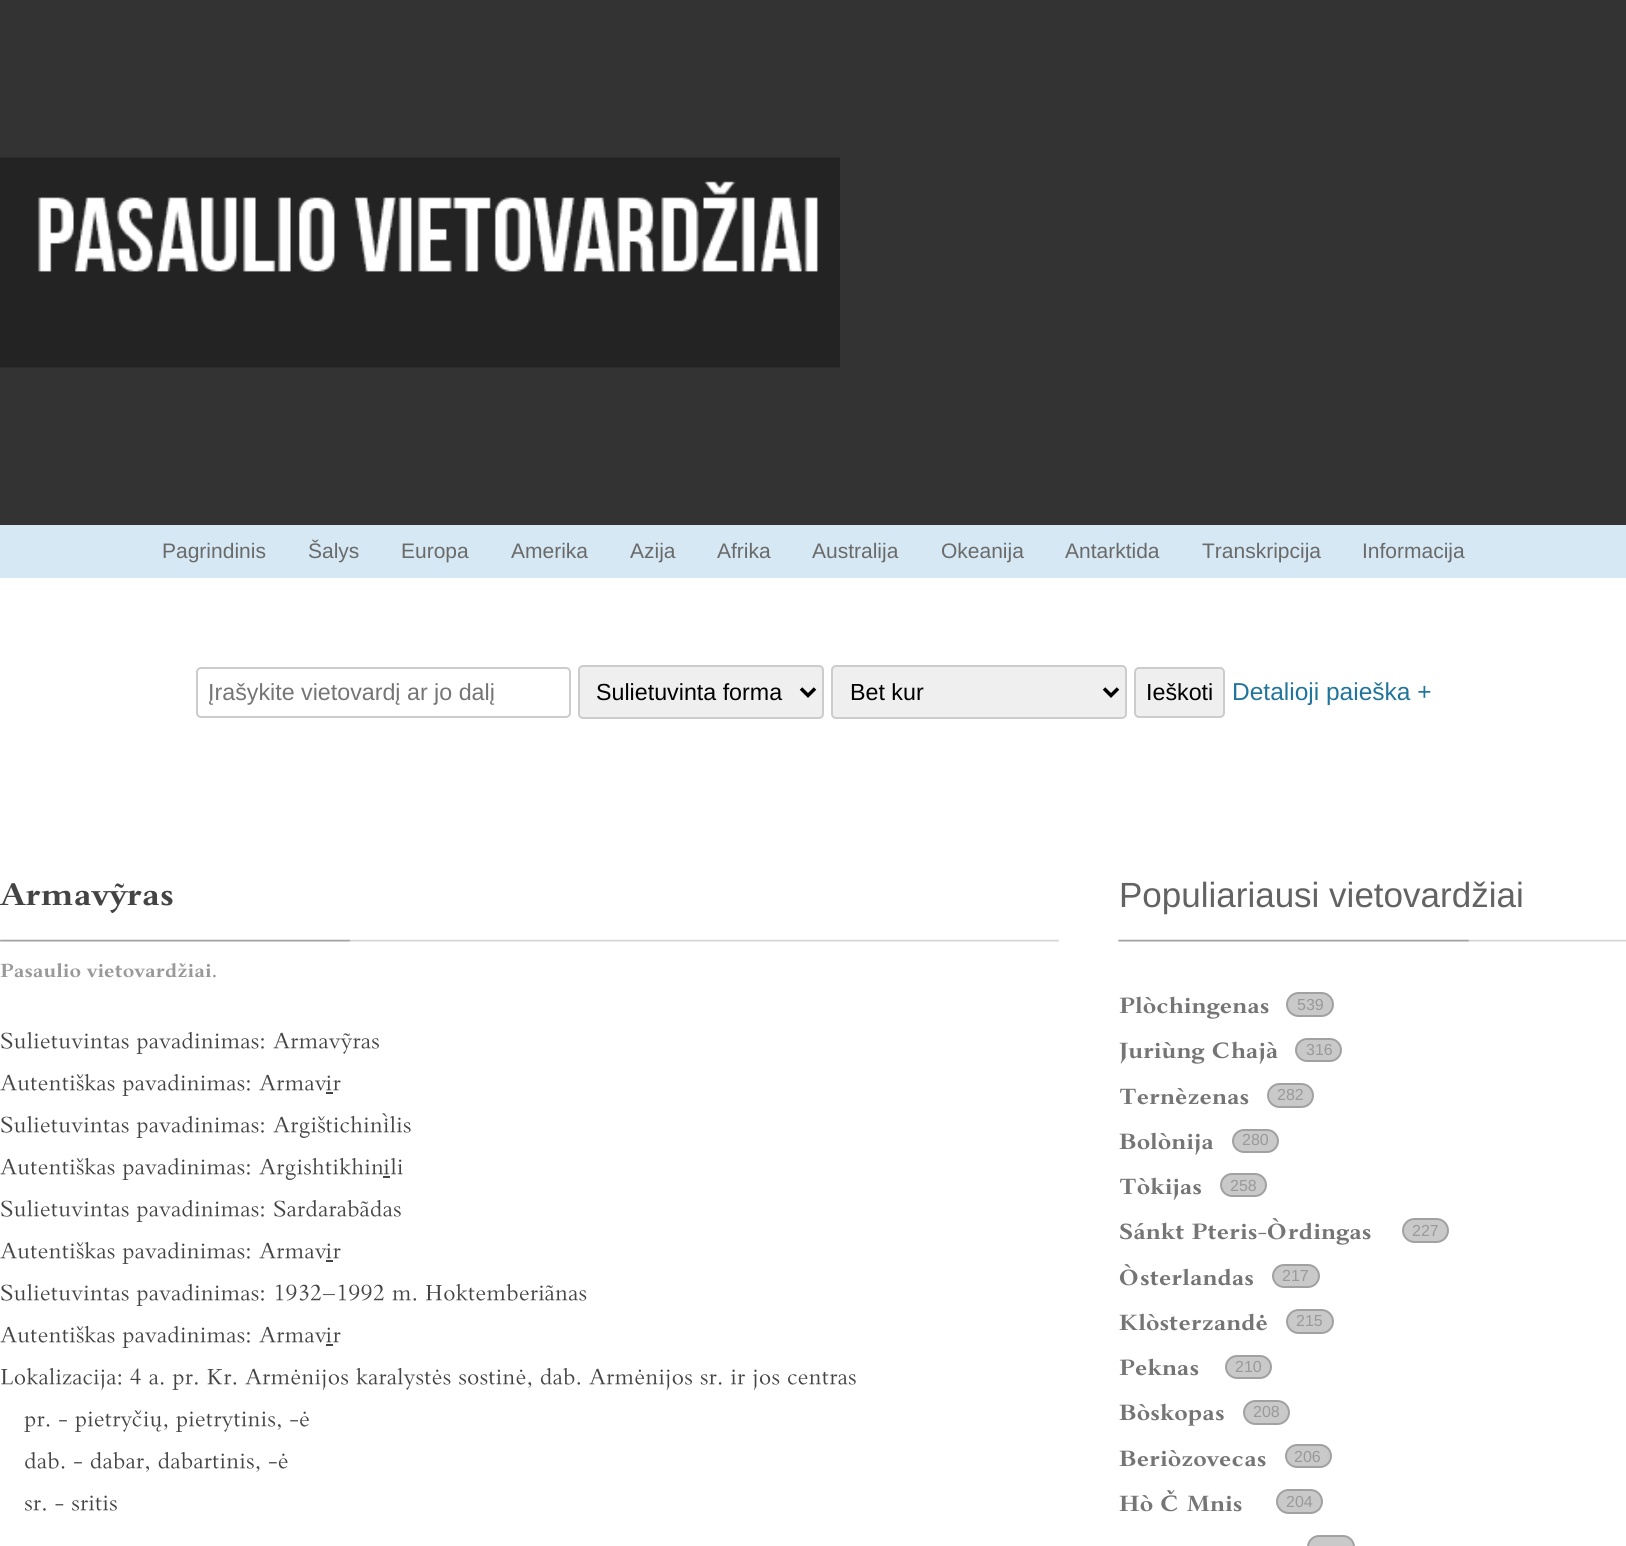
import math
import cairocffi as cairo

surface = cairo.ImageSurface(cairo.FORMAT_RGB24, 1626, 1546)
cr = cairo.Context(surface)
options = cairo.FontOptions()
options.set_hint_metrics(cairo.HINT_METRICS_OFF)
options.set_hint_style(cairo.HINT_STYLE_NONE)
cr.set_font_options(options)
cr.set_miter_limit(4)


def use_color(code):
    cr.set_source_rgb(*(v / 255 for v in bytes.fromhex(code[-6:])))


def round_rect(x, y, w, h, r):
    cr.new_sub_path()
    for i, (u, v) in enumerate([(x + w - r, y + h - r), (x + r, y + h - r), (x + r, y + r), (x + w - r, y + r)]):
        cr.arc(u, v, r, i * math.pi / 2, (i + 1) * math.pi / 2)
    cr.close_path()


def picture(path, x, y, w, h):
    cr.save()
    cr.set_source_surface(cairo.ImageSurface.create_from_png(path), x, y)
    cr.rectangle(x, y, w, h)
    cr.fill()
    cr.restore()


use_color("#ffffff")
cr.paint()
use_color("#333333")
cr.rectangle(0, 0, 1626, 525)
cr.fill()
picture("img1.png", 0, 157, 840, 211)
use_color("#d5e8f3")
cr.rectangle(0, 525, 1626, 53)
cr.fill()
cr.select_font_face("Liberation Sans")
cr.set_font_size(21)
use_color("#6a6a6a")
cr.move_to(162, 558)
cr.show_text("Pagrindinis")
cr.move_to(308, 558)
cr.show_text("Šalys")
cr.move_to(401, 558)
cr.show_text("Europa")
cr.move_to(511, 558)
cr.show_text("Amerika")
cr.move_to(630, 558)
cr.show_text("Azija")
cr.move_to(717, 558)
cr.show_text("Afrika")
cr.move_to(812, 558)
cr.show_text("Australija")
cr.move_to(941, 558)
cr.show_text("Okeanija")
cr.move_to(1065, 558)
cr.show_text("Antarktida")
cr.move_to(1202, 558)
cr.show_text("Transkripcija")
cr.move_to(1362, 558)
cr.show_text("Informacija")
round_rect(197, 668, 373, 49, 4)
use_color("#cccccc")
cr.stroke()
cr.set_font_size(23.25)
use_color("#757575")
cr.move_to(208, 700)
cr.show_text("Įrašykite vietovardį ar jo dalį")
use_color("#efefef")
round_rect(579, 666, 244, 52, 4)
cr.fill_preserve()
use_color("#cccccc")
cr.stroke()
cr.new_path()
cr.move_to(801, 688.5)
cr.line_to(808, 695.5)
cr.line_to(815, 688.5)
use_color("#000000")
cr.set_line_width(3.5)
cr.stroke()
cr.move_to(596, 700)
cr.show_text("Sulietuvinta forma")
use_color("#efefef")
round_rect(832, 666, 294, 52, 4)
cr.fill_preserve()
use_color("#cccccc")
cr.set_line_width(2)
cr.stroke()
cr.new_path()
cr.move_to(1104, 688.5)
cr.line_to(1111, 695.5)
cr.line_to(1118, 688.5)
use_color("#000000")
cr.set_line_width(3.5)
cr.stroke()
cr.move_to(850, 700)
cr.show_text("Bet kur")
use_color("#efefef")
round_rect(1135, 668, 89, 49, 4)
cr.fill_preserve()
use_color("#cccccc")
cr.set_line_width(2)
cr.stroke()
use_color("#000000")
cr.move_to(1146, 700)
cr.show_text("Ieškoti")
cr.set_font_size(24.5)
use_color("#21759b")
cr.move_to(1232, 700)
cr.show_text("Detalioji paieška +")
picture("img2.png", 0, 939, 1059, 3)
cr.select_font_face("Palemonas", cairo.FONT_SLANT_NORMAL, cairo.FONT_WEIGHT_BOLD)
cr.set_font_size(35)
use_color("#444444")
cr.move_to(0, 905)
cr.show_text("Armavỹras")
cr.set_font_size(21)
use_color("#999999")
cr.move_to(0, 977)
cr.show_text("Pasaulio vietovardžiai.")
picture("img3.png", 1, 1031, 263, 23)
picture("img4.png", 273, 1032, 106, 22)
picture("img5.png", 0, 1073, 250, 23)
picture("img6.png", 259, 1074, 68, 17)
picture("img7.png", 326, 1075, 6, 16)
picture("img8.png", 333, 1080, 8, 11)
use_color("#444444")
cr.rectangle(326, 1092, 7, 2)
cr.fill()
picture("img3.png", 1, 1115, 263, 23)
picture("img9.png", 273, 1113, 138, 25)
picture("img5.png", 0, 1157, 250, 23)
picture("img10.png", 259, 1157, 125, 23)
picture("img11.png", 384, 1159, 6, 16)
picture("img12.png", 391, 1157, 12, 18)
cr.rectangle(383, 1176, 7, 2)
cr.fill()
picture("img3.png", 1, 1199, 263, 23)
picture("img13.png", 274, 1199, 127, 18)
picture("img5.png", 0, 1241, 250, 23)
picture("img6.png", 259, 1242, 68, 17)
picture("img7.png", 326, 1243, 6, 16)
picture("img8.png", 333, 1248, 8, 11)
cr.rectangle(326, 1260, 7, 2)
cr.fill()
picture("img3.png", 1, 1283, 263, 23)
picture("img14.png", 275, 1283, 312, 18)
picture("img5.png", 0, 1325, 250, 23)
picture("img6.png", 259, 1326, 68, 17)
picture("img7.png", 326, 1327, 6, 16)
picture("img8.png", 333, 1332, 8, 11)
cr.rectangle(326, 1344, 7, 2)
cr.fill()
picture("img15.png", 1, 1367, 120, 23)
picture("img16.png", 130, 1367, 726, 23)
picture("img17.png", 24, 1410, 285, 22)
picture("img18.png", 25, 1451, 263, 21)
picture("img19.png", 25, 1495, 92, 16)
picture("img20.png", 1118, 939, 508, 3)
cr.select_font_face("Liberation Sans")
cr.set_font_size(35)
use_color("#636363")
cr.move_to(1119, 907)
cr.show_text("Populiariausi vietovardžiai")
cr.select_font_face("Palemonas", cairo.FONT_SLANT_NORMAL, cairo.FONT_WEIGHT_BOLD)
cr.set_font_size(24.5)
use_color("#757575")
cr.move_to(1119, 1013)
cr.show_text("Plòchingenas")
use_color("#c9c9c9")
round_rect(1287, 993, 46, 23, 11.5)
cr.fill_preserve()
use_color("#a1a1a1")
cr.stroke()
cr.select_font_face("Liberation Sans")
cr.set_font_size(16)
use_color("#999999")
cr.move_to(1297, 1010)
cr.show_text("539")
cr.select_font_face("Palemonas", cairo.FONT_SLANT_NORMAL, cairo.FONT_WEIGHT_BOLD)
cr.set_font_size(24.5)
use_color("#757575")
cr.move_to(1119, 1058)
cr.show_text("Juriùng Chajà")
use_color("#c9c9c9")
round_rect(1296, 1039, 45, 22, 11)
cr.fill_preserve()
use_color("#a1a1a1")
cr.stroke()
cr.select_font_face("Liberation Sans")
cr.set_font_size(16)
use_color("#999999")
cr.move_to(1306, 1055)
cr.show_text("316")
cr.select_font_face("Palemonas", cairo.FONT_SLANT_NORMAL, cairo.FONT_WEIGHT_BOLD)
cr.set_font_size(24.5)
use_color("#757575")
cr.move_to(1119, 1104)
cr.show_text("Ternèzenas")
use_color("#c9c9c9")
round_rect(1268, 1084, 45, 23, 11.5)
cr.fill_preserve()
use_color("#a1a1a1")
cr.stroke()
cr.select_font_face("Liberation Sans")
cr.set_font_size(16)
use_color("#999999")
cr.move_to(1277, 1100)
cr.show_text("282")
cr.select_font_face("Palemonas", cairo.FONT_SLANT_NORMAL, cairo.FONT_WEIGHT_BOLD)
cr.set_font_size(24.5)
use_color("#757575")
cr.move_to(1119, 1149)
cr.show_text("Bolònija")
use_color("#c9c9c9")
round_rect(1233, 1130, 45, 22, 11)
cr.fill_preserve()
use_color("#a1a1a1")
cr.stroke()
cr.select_font_face("Liberation Sans")
cr.set_font_size(16)
use_color("#999999")
cr.move_to(1242, 1145)
cr.show_text("280")
cr.select_font_face("Palemonas", cairo.FONT_SLANT_NORMAL, cairo.FONT_WEIGHT_BOLD)
cr.set_font_size(24.5)
use_color("#757575")
cr.move_to(1119, 1194)
cr.show_text("Tòkijas")
use_color("#c9c9c9")
round_rect(1221, 1174, 45, 22, 11)
cr.fill_preserve()
use_color("#a1a1a1")
cr.stroke()
cr.select_font_face("Liberation Sans")
cr.set_font_size(16)
use_color("#999999")
cr.move_to(1230, 1191)
cr.show_text("258")
cr.select_font_face("Palemonas", cairo.FONT_SLANT_NORMAL, cairo.FONT_WEIGHT_BOLD)
cr.set_font_size(24.5)
use_color("#757575")
cr.move_to(1119, 1239)
cr.show_text("Sánkt Pteris-Òrdingas")
use_color("#c9c9c9")
round_rect(1403, 1219, 45, 23, 11.5)
cr.fill_preserve()
use_color("#a1a1a1")
cr.stroke()
cr.select_font_face("Liberation Sans")
cr.set_font_size(16)
use_color("#999999")
cr.move_to(1412, 1236)
cr.show_text("227")
cr.select_font_face("Palemonas", cairo.FONT_SLANT_NORMAL, cairo.FONT_WEIGHT_BOLD)
cr.set_font_size(24.5)
use_color("#757575")
cr.move_to(1119, 1285)
cr.show_text("Òsterlandas")
use_color("#c9c9c9")
round_rect(1273, 1265, 46, 22, 11)
cr.fill_preserve()
use_color("#a1a1a1")
cr.stroke()
cr.select_font_face("Liberation Sans")
cr.set_font_size(16)
use_color("#999999")
cr.move_to(1282, 1281)
cr.show_text("217")
cr.select_font_face("Palemonas", cairo.FONT_SLANT_NORMAL, cairo.FONT_WEIGHT_BOLD)
cr.set_font_size(24.5)
use_color("#757575")
cr.move_to(1119, 1330)
cr.show_text("Klòsterzandė")
use_color("#c9c9c9")
round_rect(1287, 1310, 46, 23, 11.5)
cr.fill_preserve()
use_color("#a1a1a1")
cr.stroke()
cr.select_font_face("Liberation Sans")
cr.set_font_size(16)
use_color("#999999")
cr.move_to(1296, 1326)
cr.show_text("215")
cr.select_font_face("Palemonas", cairo.FONT_SLANT_NORMAL, cairo.FONT_WEIGHT_BOLD)
cr.set_font_size(24.5)
use_color("#757575")
cr.move_to(1119, 1375)
cr.show_text("Peknas")
use_color("#c9c9c9")
round_rect(1226, 1356, 45, 22, 11)
cr.fill_preserve()
use_color("#a1a1a1")
cr.stroke()
cr.select_font_face("Liberation Sans")
cr.set_font_size(16)
use_color("#999999")
cr.move_to(1235, 1372)
cr.show_text("210")
cr.select_font_face("Palemonas", cairo.FONT_SLANT_NORMAL, cairo.FONT_WEIGHT_BOLD)
cr.set_font_size(24.5)
use_color("#757575")
cr.move_to(1119, 1420)
cr.show_text("Bòskopas")
use_color("#c9c9c9")
round_rect(1244, 1401, 45, 23, 11.5)
cr.fill_preserve()
use_color("#a1a1a1")
cr.stroke()
cr.select_font_face("Liberation Sans")
cr.set_font_size(16)
use_color("#999999")
cr.move_to(1253, 1417)
cr.show_text("208")
cr.select_font_face("Palemonas", cairo.FONT_SLANT_NORMAL, cairo.FONT_WEIGHT_BOLD)
cr.set_font_size(24.5)
use_color("#757575")
cr.move_to(1119, 1466)
cr.show_text("Beriòzovecas")
use_color("#c9c9c9")
round_rect(1286, 1445, 45, 22, 11)
cr.fill_preserve()
use_color("#a1a1a1")
cr.stroke()
cr.select_font_face("Liberation Sans")
cr.set_font_size(16)
use_color("#999999")
cr.move_to(1294, 1462)
cr.show_text("206")
cr.select_font_face("Palemonas", cairo.FONT_SLANT_NORMAL, cairo.FONT_WEIGHT_BOLD)
cr.set_font_size(24.5)
use_color("#757575")
cr.move_to(1119, 1511)
cr.show_text("Hò Č Mnis")
use_color("#c9c9c9")
round_rect(1277, 1490, 45, 23, 11.5)
cr.fill_preserve()
use_color("#a1a1a1")
cr.stroke()
cr.select_font_face("Liberation Sans")
cr.set_font_size(16)
use_color("#999999")
cr.move_to(1286, 1507)
cr.show_text("204")
use_color("#c9c9c9")
round_rect(1308, 1536, 46, 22, 11)
cr.fill_preserve()
use_color("#a1a1a1")
cr.stroke()
surface.write_to_png("result.png")
